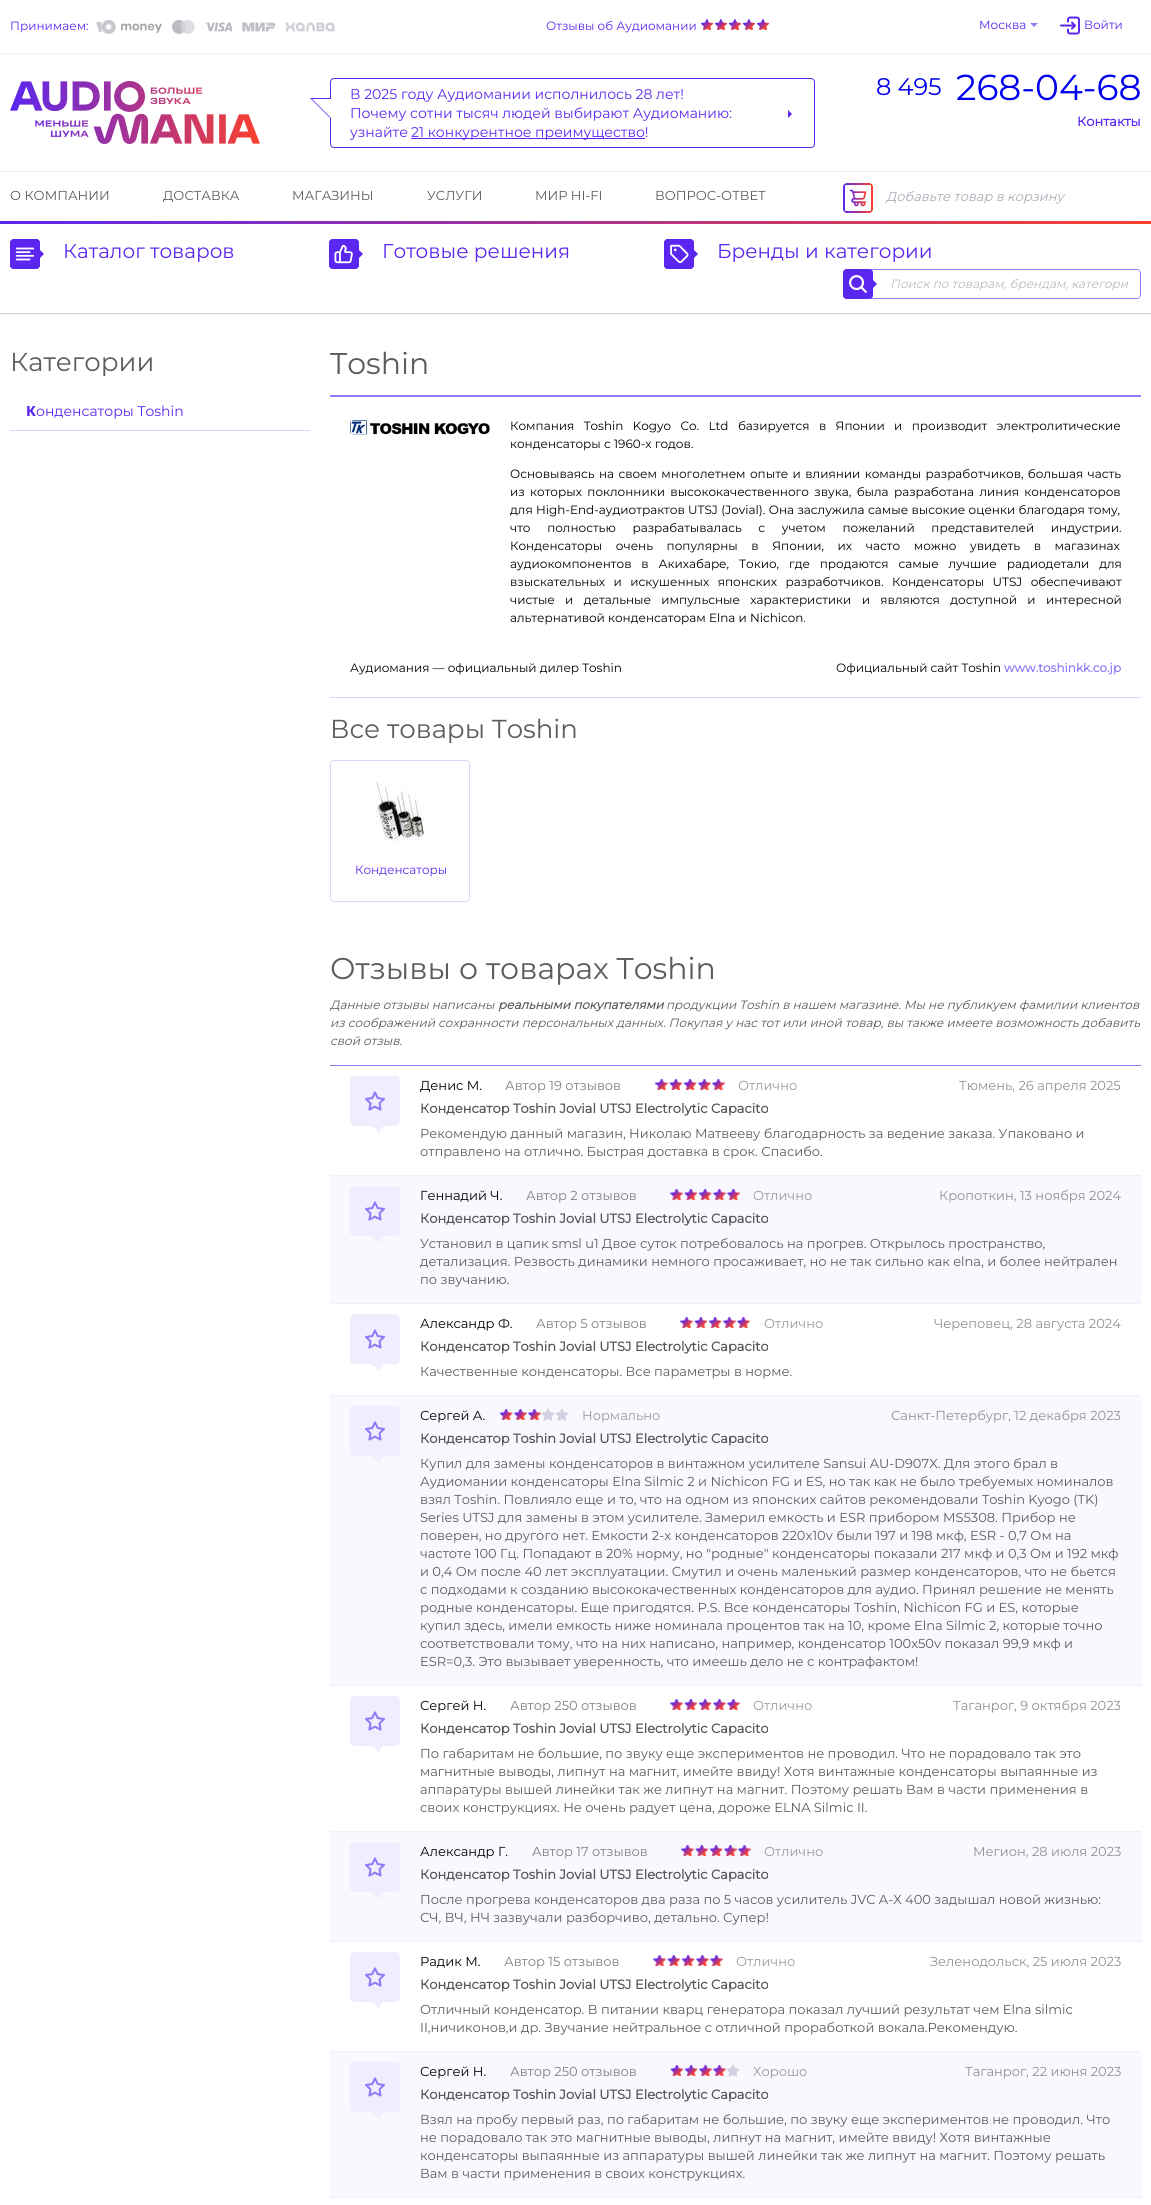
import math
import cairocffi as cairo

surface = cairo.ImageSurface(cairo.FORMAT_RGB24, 1151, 2205)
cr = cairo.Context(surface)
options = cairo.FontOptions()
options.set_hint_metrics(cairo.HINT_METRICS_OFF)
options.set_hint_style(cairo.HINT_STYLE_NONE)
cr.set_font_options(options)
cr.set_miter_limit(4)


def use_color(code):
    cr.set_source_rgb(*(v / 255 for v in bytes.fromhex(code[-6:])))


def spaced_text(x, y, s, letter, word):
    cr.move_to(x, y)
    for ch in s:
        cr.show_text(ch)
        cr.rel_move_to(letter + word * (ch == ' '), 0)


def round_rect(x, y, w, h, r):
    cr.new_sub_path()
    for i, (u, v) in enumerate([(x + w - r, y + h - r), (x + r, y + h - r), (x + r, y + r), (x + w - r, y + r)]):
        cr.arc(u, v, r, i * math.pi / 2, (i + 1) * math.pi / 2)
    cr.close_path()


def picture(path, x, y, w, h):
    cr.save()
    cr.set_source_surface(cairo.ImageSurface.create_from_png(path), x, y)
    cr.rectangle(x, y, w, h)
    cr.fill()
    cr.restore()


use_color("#ffffff")
cr.paint()
use_color("#efefef")
cr.rectangle(0, 53, 1151, 1)
cr.fill()
cr.select_font_face("Montserrat Thin")
cr.set_font_size(12)
use_color("#5b27f0")
cr.move_to(10, 30)
cr.show_text("Принимаем:")
picture("img1.png", 96, 20, 239, 14)
cr.move_to(546, 30)
cr.show_text("Отзывы об Аудиомании")
picture("img2.png", 701, 19, 68, 11)
cr.move_to(979, 29)
cr.show_text("Москва")
use_color("#9078f7")
cr.new_path()
cr.move_to(1030, 23)
cr.line_to(1038, 23)
cr.line_to(1034, 27)
cr.close_path()
cr.fill()
picture("img3.png", 1060, 16, 20, 19)
use_color("#5b27f0")
cr.move_to(1084, 29)
cr.show_text("Войти")
use_color("#efefef")
cr.rectangle(0, 171, 1151, 1)
cr.fill()
picture("img4.png", 10, 81, 250, 63)
round_rect(330.5, 78.5, 484, 69, 3.5)
use_color("#5b27f0")
cr.set_line_width(1)
cr.stroke()
cr.new_path()
cr.move_to(331, 98)
cr.line_to(331, 119)
cr.line_to(310, 98)
cr.close_path()
cr.fill()
cr.set_font_size(14)
cr.move_to(350, 99)
cr.show_text("В 2025 году Аудиомании исполнилось 28 лет!")
cr.move_to(350, 118)
cr.show_text("Почему сотни тысяч людей выбирают Аудиоманию:")
cr.move_to(350, 137)
cr.show_text("узнайте")
cr.rectangle(411, 138, 234, 1)
cr.fill()
cr.move_to(411, 137)
cr.show_text("21 конкурентное преимущество!")
use_color("#ffffff")
cr.new_path()
cr.move_to(331, 99)
cr.line_to(331, 118)
cr.line_to(312, 99)
cr.close_path()
cr.fill()
use_color("#5b27f0")
cr.new_path()
cr.move_to(788, 118)
cr.line_to(788, 110)
cr.line_to(792, 114)
cr.close_path()
cr.fill()
cr.set_font_size(24)
use_color("#0000ee")
cr.move_to(876, 95)
cr.show_text("8 495")
cr.set_font_size(36)
cr.move_to(956, 100)
cr.show_text("268-04-68")
cr.select_font_face("Montserrat", cairo.FONT_SLANT_NORMAL, cairo.FONT_WEIGHT_BOLD)
cr.set_font_size(13)
use_color("#5b27f0")
cr.move_to(1077, 126)
cr.show_text("Контакты")
picture("img5.png", 0, 221, 1151, 3)
cr.select_font_face("Montserrat Thin")
use_color("#5c5c5c")
cr.move_to(10, 200)
cr.show_text("О КОМПАНИИ")
cr.move_to(163, 200)
cr.show_text("ДОСТАВКА")
cr.move_to(292, 200)
cr.show_text("МАГАЗИНЫ")
cr.move_to(427, 200)
cr.show_text("УСЛУГИ")
cr.move_to(535, 200)
cr.show_text("МИР HI-FI")
cr.move_to(655, 200)
cr.show_text("ВОПРОС-ОТВЕТ")
picture("img6.png", 843, 183, 30, 30)
cr.select_font_face("Montserrat Thin", cairo.FONT_SLANT_ITALIC)
use_color("#adaab6")
cr.move_to(886, 201)
cr.show_text("Добавьте товар в корзину")
use_color("#5b27f0")
round_rect(10, 239, 30, 30, 4)
cr.fill()
picture("img7.png", 15, 247, 20, 14)
round_rect(10.5, 239.5, 29, 29, 3.5)
cr.stroke()
cr.new_path()
cr.move_to(40, 258)
cr.line_to(40, 250)
cr.line_to(44, 254)
cr.close_path()
cr.fill()
cr.select_font_face("Montserrat Thin")
cr.set_font_size(20)
cr.move_to(63, 258)
cr.show_text("Каталог товаров")
round_rect(329, 239, 30, 30, 4)
cr.fill()
picture("img8.png", 334, 244, 19, 20)
round_rect(329.5, 239.5, 29, 29, 3.5)
cr.stroke()
cr.new_path()
cr.move_to(359, 258)
cr.line_to(359, 250)
cr.line_to(363, 254)
cr.close_path()
cr.fill()
cr.move_to(382, 258)
cr.show_text("Готовые решения")
round_rect(664, 239, 30, 30, 4)
cr.fill()
picture("img9.png", 670, 244, 19, 20)
round_rect(664.5, 239.5, 29, 29, 3.5)
cr.stroke()
cr.new_path()
cr.move_to(694, 258)
cr.line_to(694, 250)
cr.line_to(698, 254)
cr.close_path()
cr.fill()
cr.move_to(717, 258)
cr.show_text("Бренды и категории")
use_color("#9078f7")
cr.set_fill_rule(cairo.FILL_RULE_EVEN_ODD)
cr.new_path()
cr.move_to(870, 269)
cr.line_to(1137, 269)
cr.curve_to(1139, 269, 1141, 271, 1141, 273)
cr.line_to(1141, 295)
cr.curve_to(1141, 297, 1139, 299, 1137, 299)
cr.line_to(870, 299)
cr.close_path()
cr.move_to(870, 270)
cr.line_to(1137, 270)
cr.curve_to(1139, 270, 1140, 271, 1140, 273)
cr.line_to(1140, 295)
cr.curve_to(1140, 297, 1139, 298, 1137, 298)
cr.line_to(870, 298)
cr.close_path()
cr.fill()
use_color("#5b27f0")
round_rect(843, 269, 30, 30, 4)
cr.fill()
picture("img10.png", 849, 275, 18, 18)
round_rect(843.5, 269.5, 29, 29, 3.5)
cr.stroke()
cr.set_fill_rule(cairo.FILL_RULE_WINDING)
cr.new_path()
cr.move_to(873, 288)
cr.line_to(873, 280)
cr.line_to(877, 284)
cr.close_path()
cr.fill()
cr.select_font_face("Montserrat Thin", cairo.FONT_SLANT_ITALIC)
cr.set_font_size(12)
use_color("#bbbbbb")
cr.move_to(890, 288)
cr.show_text("Поиск по товарам, брендам, категори")
gradient = cairo.LinearGradient(576, 313, 576, 315)
gradient.add_color_stop_rgba(0, 0.8, 0.8, 0.8, 1)
gradient.add_color_stop_rgba(1, 1, 1, 1, 1)
cr.set_source(gradient)
cr.rectangle(0, 313, 1151, 2)
cr.fill()
cr.select_font_face("Montserrat Thin")
cr.set_font_size(26)
use_color("#5c5c5c")
cr.move_to(10, 371)
cr.show_text("Категории")
use_color("#dad7fd")
cr.rectangle(10, 430, 300, 1)
cr.fill()
cr.select_font_face("Noto Sans ExtraBold")
cr.set_font_size(14)
use_color("#5b27f0")
cr.move_to(26, 416)
cr.show_text("К")
cr.select_font_face("Montserrat Thin")
cr.move_to(36, 416)
cr.show_text("онденсаторы Toshin")
use_color("#9078f7")
cr.rectangle(330, 395, 811, 2)
cr.fill()
cr.set_font_size(30)
use_color("#5c5c5c")
cr.move_to(330, 374)
cr.show_text("Toshin")
use_color("#dad7fd")
cr.rectangle(330, 697, 811, 1)
cr.fill()
picture("img11.png", 350, 420, 140, 15)
cr.set_font_size(12)
use_color("#000000")
spaced_text(510, 430, "Компания Toshin Kogyo Co. Ltd базируется в Японии и производит электролитические", 0, 6.25)
cr.move_to(510, 448)
cr.show_text("конденсаторы с 1960-х годов.")
spaced_text(510, 478, "Основываясь на своем многолетнем опыте и влиянии команды разработчиков, большая часть", 0, 1.25)
spaced_text(510, 496, "из которых поклонники высококачественного звука, была разработана линия конденсаторов", 0, 2.25)
spaced_text(510, 514, "для High-End-аудиотрактов UTSJ (Jovial). Она заслужила самые высокие оценки благодаря тому,", 0, 0.25)
spaced_text(510, 532, "что полностью разрабатывалась с учетом пожеланий представителей индустрии.", 0, 13.5)
spaced_text(510, 550, "Конденсаторы очень популярны в Японии, их часто можно увидеть в магазинах", 0, 10.5)
spaced_text(510, 568, "аудиокомпонентов в Акихабаре, Токио, где продаются самые лучшие радиодетали для", 0, 6.75)
spaced_text(510, 586, "взыскательных и искушенных японских разработчиков. Конденсаторы UTSJ обеспечивают", 0, 5.25)
spaced_text(510, 604, "чистые и детальные импульсные характеристики и являются доступной и интересной", 0, 7.25)
cr.move_to(510, 622)
cr.show_text("альтернативой конденсаторам Elna и Nichicon.")
cr.move_to(350, 672)
cr.show_text("Аудиомания — официальный дилер Toshin")
cr.move_to(836, 672)
cr.show_text("Официальный сайт Toshin")
cr.select_font_face("Montserrat", cairo.FONT_SLANT_NORMAL, cairo.FONT_WEIGHT_BOLD)
use_color("#9078f7")
cr.move_to(1004, 672)
cr.show_text("www.toshinkk.co.jp")
cr.select_font_face("Montserrat Thin")
cr.set_font_size(26)
use_color("#5c5c5c")
cr.move_to(330, 738)
cr.show_text("Все товары Toshin")
picture("img12.png", 376, 781, 48, 61)
round_rect(330.5, 760.5, 139, 141, 3.5)
use_color("#dad7fd")
cr.stroke()
cr.set_font_size(12)
use_color("#5b27f0")
cr.move_to(355, 874)
cr.show_text("Конденсаторы")
cr.set_font_size(30)
use_color("#5c5c5c")
cr.move_to(330, 979)
cr.show_text("Отзывы о товарах Toshin")
cr.select_font_face("Montserrat Thin", cairo.FONT_SLANT_ITALIC)
cr.set_font_size(12)
cr.move_to(330, 1009)
cr.show_text("Данные отзывы написаны")
cr.select_font_face("Montserrat", cairo.FONT_SLANT_ITALIC, cairo.FONT_WEIGHT_BOLD)
cr.move_to(498, 1009)
cr.show_text("реальными покупателями")
cr.select_font_face("Montserrat Thin", cairo.FONT_SLANT_ITALIC)
cr.move_to(666, 1009)
cr.show_text("продукции Toshin в нашем магазине. Мы не публикуем фамилии клиентов")
cr.move_to(330, 1027)
cr.show_text("из соображений сохранности персональных данных. Покупая у нас тот или иной товар, вы также имеете возможность добавить")
cr.move_to(330, 1045)
cr.show_text("свой отзыв.")
use_color("#9078f7")
cr.rectangle(330, 1065, 811, 1)
cr.fill()
use_color("#efeefe")
cr.rectangle(330, 1175, 811, 1)
cr.fill()
picture("img13.png", 350, 1076, 50, 57)
picture("img14.png", 350, 1076, 50, 57)
cr.select_font_face("Montserrat Thin")
cr.set_font_size(13)
use_color("#000000")
cr.move_to(420, 1090)
cr.show_text("Денис М.")
use_color("#7f7f7f")
cr.move_to(505, 1090)
cr.show_text("Автор 19 отзывов")
picture("img15.png", 655, 1079, 70, 11)
use_color("#999999")
cr.move_to(738, 1090)
cr.show_text("Отлично")
cr.select_font_face("Montserrat", cairo.FONT_SLANT_NORMAL, cairo.FONT_WEIGHT_BOLD)
use_color("#555555")
cr.move_to(420, 1113)
cr.show_text("Конденсатор Toshin Jovial UTSJ Electrolytic Capacito")
cr.select_font_face("Montserrat Thin")
use_color("#909090")
cr.move_to(959, 1090)
cr.show_text("Тюмень, 26 апреля 2025")
use_color("#5c5c5c")
cr.move_to(420, 1138)
cr.show_text("Рекомендую данный магазин, Николаю Матвееву благодарность за ведение заказа. Упаковано и")
cr.move_to(420, 1156)
cr.show_text("отправлено на отлично. Быстрая доставка в срок. Спасибо.")
use_color("#f9f8ff")
cr.rectangle(330, 1176, 811, 127)
cr.fill()
use_color("#efeefe")
cr.rectangle(330, 1303, 811, 1)
cr.fill()
picture("img16.png", 350, 1186, 50, 57)
picture("img17.png", 350, 1186, 50, 56)
use_color("#000000")
cr.move_to(420, 1200)
cr.show_text("Геннадий Ч.")
use_color("#7f7f7f")
cr.move_to(526, 1200)
cr.show_text("Автор 2 отзывов")
picture("img18.png", 670, 1189, 70, 11)
use_color("#999999")
cr.move_to(753, 1200)
cr.show_text("Отлично")
cr.select_font_face("Montserrat", cairo.FONT_SLANT_NORMAL, cairo.FONT_WEIGHT_BOLD)
use_color("#555555")
cr.move_to(420, 1223)
cr.show_text("Конденсатор Toshin Jovial UTSJ Electrolytic Capacito")
cr.select_font_face("Montserrat Thin")
use_color("#909090")
cr.move_to(939, 1200)
cr.show_text("Кропоткин, 13 ноября 2024")
use_color("#5c5c5c")
cr.move_to(420, 1248)
cr.show_text("Установил в цапик smsl u1 Двое суток потребовалось на прогрев. Открылось пространство,")
cr.move_to(420, 1266)
cr.show_text("детализация. Резвость динамики немного просаживает, но не так сильно как elna, и более нейтрален")
cr.move_to(420, 1284)
cr.show_text("по звучанию.")
use_color("#efeefe")
cr.rectangle(330, 1395, 811, 1)
cr.fill()
picture("img13.png", 350, 1314, 50, 57)
picture("img14.png", 350, 1314, 50, 57)
use_color("#000000")
cr.move_to(420, 1328)
cr.show_text("Александр Ф.")
use_color("#7f7f7f")
cr.move_to(536, 1328)
cr.show_text("Автор 5 отзывов")
picture("img15.png", 680, 1317, 70, 11)
use_color("#999999")
cr.move_to(764, 1328)
cr.show_text("Отлично")
cr.select_font_face("Montserrat", cairo.FONT_SLANT_NORMAL, cairo.FONT_WEIGHT_BOLD)
use_color("#555555")
cr.move_to(420, 1351)
cr.show_text("Конденсатор Toshin Jovial UTSJ Electrolytic Capacito")
cr.select_font_face("Montserrat Thin")
use_color("#909090")
cr.move_to(934, 1328)
cr.show_text("Череповец, 28 августа 2024")
use_color("#5c5c5c")
cr.move_to(420, 1376)
cr.show_text("Качественные конденсаторы. Все параметры в норме.")
use_color("#f9f8ff")
cr.rectangle(330, 1396, 811, 289)
cr.fill()
use_color("#efeefe")
cr.rectangle(330, 1685, 811, 1)
cr.fill()
picture("img16.png", 350, 1406, 50, 57)
picture("img17.png", 350, 1406, 50, 56)
use_color("#000000")
cr.move_to(420, 1420)
cr.show_text("Сергей А.")
picture("img19.png", 499, 1408, 70, 13)
use_color("#999999")
cr.move_to(582, 1420)
cr.show_text("Нормально")
cr.select_font_face("Montserrat", cairo.FONT_SLANT_NORMAL, cairo.FONT_WEIGHT_BOLD)
use_color("#555555")
cr.move_to(420, 1443)
cr.show_text("Конденсатор Toshin Jovial UTSJ Electrolytic Capacito")
cr.select_font_face("Montserrat Thin")
use_color("#909090")
cr.move_to(891, 1420)
cr.show_text("Санкт-Петербург, 12 декабря 2023")
use_color("#5c5c5c")
cr.move_to(420, 1468)
cr.show_text("Купил для замены конденсаторов в винтажном усилителе Sansui AU-D907X. Для этого брал в")
cr.move_to(420, 1486)
cr.show_text("Аудиомании конденсаторы Elna Silmic 2 и Nichicon FG и ES, но так как не было требуемых номиналов")
cr.move_to(420, 1504)
cr.show_text("взял Toshin. Повлияло еще и то, что на одном из японских сайтов рекомендовали Toshin Kyogo (TK)")
cr.move_to(420, 1522)
cr.show_text("Series UTSJ для замены в этом усилителе. Замерил емкость и ESR прибором MS5308. Прибор не")
cr.move_to(420, 1540)
cr.show_text("поверен, но другого нет. Емкости 2-х конденсаторов 220x10v были 197 и 198 мкф, ESR - 0,7 Ом на")
cr.move_to(420, 1558)
cr.show_text("частоте 100 Гц. Попадают в 20% норму, но \"родные\" конденсаторы показали 217 мкф и 0,3 Ом и 192 мкф")
cr.move_to(420, 1576)
cr.show_text("и 0,4 Ом после 40 лет эксплуатации. Смутил и очень маленький размер конденсаторов, что не бьется")
cr.move_to(420, 1594)
cr.show_text("с подходами к созданию высококачественных конденсаторов для аудио. Принял решение не менять")
cr.move_to(420, 1612)
cr.show_text("родные конденсаторы. Еще пригодятся. P.S. Все конденсаторы Toshin, Nichicon FG и ES, которые")
cr.move_to(420, 1630)
cr.show_text("купил здесь, имели емкость ниже номинала процентов так на 10, кроме Elna Silmic 2, которые точно")
cr.move_to(420, 1648)
cr.show_text("соответствовали тому, что на них написано, например, конденсатор 100х50v показал 99,9 мкф и")
cr.move_to(420, 1666)
cr.show_text("ESR=0,3. Это вызывает уверенность, что имеешь дело не с контрафактом!")
use_color("#efeefe")
cr.rectangle(330, 1831, 811, 1)
cr.fill()
picture("img13.png", 350, 1696, 50, 57)
picture("img14.png", 350, 1696, 50, 57)
use_color("#000000")
cr.move_to(420, 1710)
cr.show_text("Сергей Н.")
use_color("#7f7f7f")
cr.move_to(510, 1710)
cr.show_text("Автор 250 отзывов")
picture("img15.png", 670, 1699, 70, 11)
use_color("#999999")
cr.move_to(753, 1710)
cr.show_text("Отлично")
cr.select_font_face("Montserrat", cairo.FONT_SLANT_NORMAL, cairo.FONT_WEIGHT_BOLD)
use_color("#555555")
cr.move_to(420, 1733)
cr.show_text("Конденсатор Toshin Jovial UTSJ Electrolytic Capacito")
cr.select_font_face("Montserrat Thin")
use_color("#909090")
cr.move_to(953, 1710)
cr.show_text("Таганрог, 9 октября 2023")
use_color("#5c5c5c")
cr.move_to(420, 1758)
cr.show_text("По габаритам не большие, по звуку еще экспериментов не проводил. Что не порадовало так это")
cr.move_to(420, 1776)
cr.show_text("магнитные выводы, липнут на магнит, имейте ввиду! Хотя винтажные конденсаторы выпаянные из")
cr.move_to(420, 1794)
cr.show_text("аппаратуры вышей линейки так же липнут на магнит. Поэтому решать Вам в части применения в")
cr.move_to(420, 1812)
cr.show_text("своих конструкциях. Не очень радует цена, дороже ELNA Silmic II.")
use_color("#f9f8ff")
cr.rectangle(330, 1832, 811, 109)
cr.fill()
use_color("#efeefe")
cr.rectangle(330, 1941, 811, 1)
cr.fill()
picture("img16.png", 350, 1842, 50, 57)
picture("img17.png", 350, 1842, 50, 56)
use_color("#000000")
cr.move_to(420, 1856)
cr.show_text("Александр Г.")
use_color("#7f7f7f")
cr.move_to(532, 1856)
cr.show_text("Автор 17 отзывов")
picture("img18.png", 681, 1845, 70, 11)
use_color("#999999")
cr.move_to(764, 1856)
cr.show_text("Отлично")
cr.select_font_face("Montserrat", cairo.FONT_SLANT_NORMAL, cairo.FONT_WEIGHT_BOLD)
use_color("#555555")
cr.move_to(420, 1879)
cr.show_text("Конденсатор Toshin Jovial UTSJ Electrolytic Capacito")
cr.select_font_face("Montserrat Thin")
use_color("#909090")
cr.move_to(973, 1856)
cr.show_text("Мегион, 28 июля 2023")
use_color("#5c5c5c")
cr.move_to(420, 1904)
cr.show_text("После прогрева конденсаторов два раза по 5 часов усилитель JVC A-X 400 задышал новой жизнью:")
cr.move_to(420, 1922)
cr.show_text("СЧ, ВЧ, НЧ зазвучали разборчиво, детально. Супер!")
use_color("#efeefe")
cr.rectangle(330, 2051, 811, 1)
cr.fill()
picture("img13.png", 350, 1952, 50, 57)
picture("img14.png", 350, 1952, 50, 57)
use_color("#000000")
cr.move_to(420, 1966)
cr.show_text("Радик М.")
use_color("#7f7f7f")
cr.move_to(504, 1966)
cr.show_text("Автор 15 отзывов")
picture("img15.png", 653, 1955, 70, 11)
use_color("#999999")
cr.move_to(736, 1966)
cr.show_text("Отлично")
cr.select_font_face("Montserrat", cairo.FONT_SLANT_NORMAL, cairo.FONT_WEIGHT_BOLD)
use_color("#555555")
cr.move_to(420, 1989)
cr.show_text("Конденсатор Toshin Jovial UTSJ Electrolytic Capacito")
cr.select_font_face("Montserrat Thin")
use_color("#909090")
cr.move_to(930, 1966)
cr.show_text("Зеленодольск, 25 июля 2023")
use_color("#5c5c5c")
cr.move_to(420, 2014)
cr.show_text("Отличный конденсатор. В питании кварц генератора показал лучший результат чем Elna silmic")
cr.move_to(420, 2032)
cr.show_text("II,ничиконов,и др. Звучание нейтральное с отличной проработкой вокала.Рекомендую.")
use_color("#f9f8ff")
cr.rectangle(330, 2052, 811, 145)
cr.fill()
use_color("#efeefe")
cr.rectangle(330, 2197, 811, 1)
cr.fill()
picture("img16.png", 350, 2062, 50, 57)
picture("img17.png", 350, 2062, 50, 56)
use_color("#000000")
cr.move_to(420, 2076)
cr.show_text("Сергей Н.")
use_color("#7f7f7f")
cr.move_to(510, 2076)
cr.show_text("Автор 250 отзывов")
picture("img20.png", 670, 2064, 70, 13)
use_color("#999999")
cr.move_to(753, 2076)
cr.show_text("Хорошо")
cr.select_font_face("Montserrat", cairo.FONT_SLANT_NORMAL, cairo.FONT_WEIGHT_BOLD)
use_color("#555555")
cr.move_to(420, 2099)
cr.show_text("Конденсатор Toshin Jovial UTSJ Electrolytic Capacito")
cr.select_font_face("Montserrat Thin")
use_color("#909090")
cr.move_to(965, 2076)
cr.show_text("Таганрог, 22 июня 2023")
use_color("#5c5c5c")
cr.move_to(420, 2124)
cr.show_text("Взял на пробу первый раз, по габаритам не большие, по звуку еще экспериментов не проводил. Что")
cr.move_to(420, 2142)
cr.show_text("не порадовало так это магнитные выводы, липнут на магнит, имейте ввиду! Хотя винтажные")
cr.move_to(420, 2160)
cr.show_text("конденсаторы выпаянные из аппаратуры вышей линейки так же липнут на магнит. Поэтому решать")
cr.move_to(420, 2178)
cr.show_text("Вам в части применения в своих конструкциях.")
surface.write_to_png("result.png")
